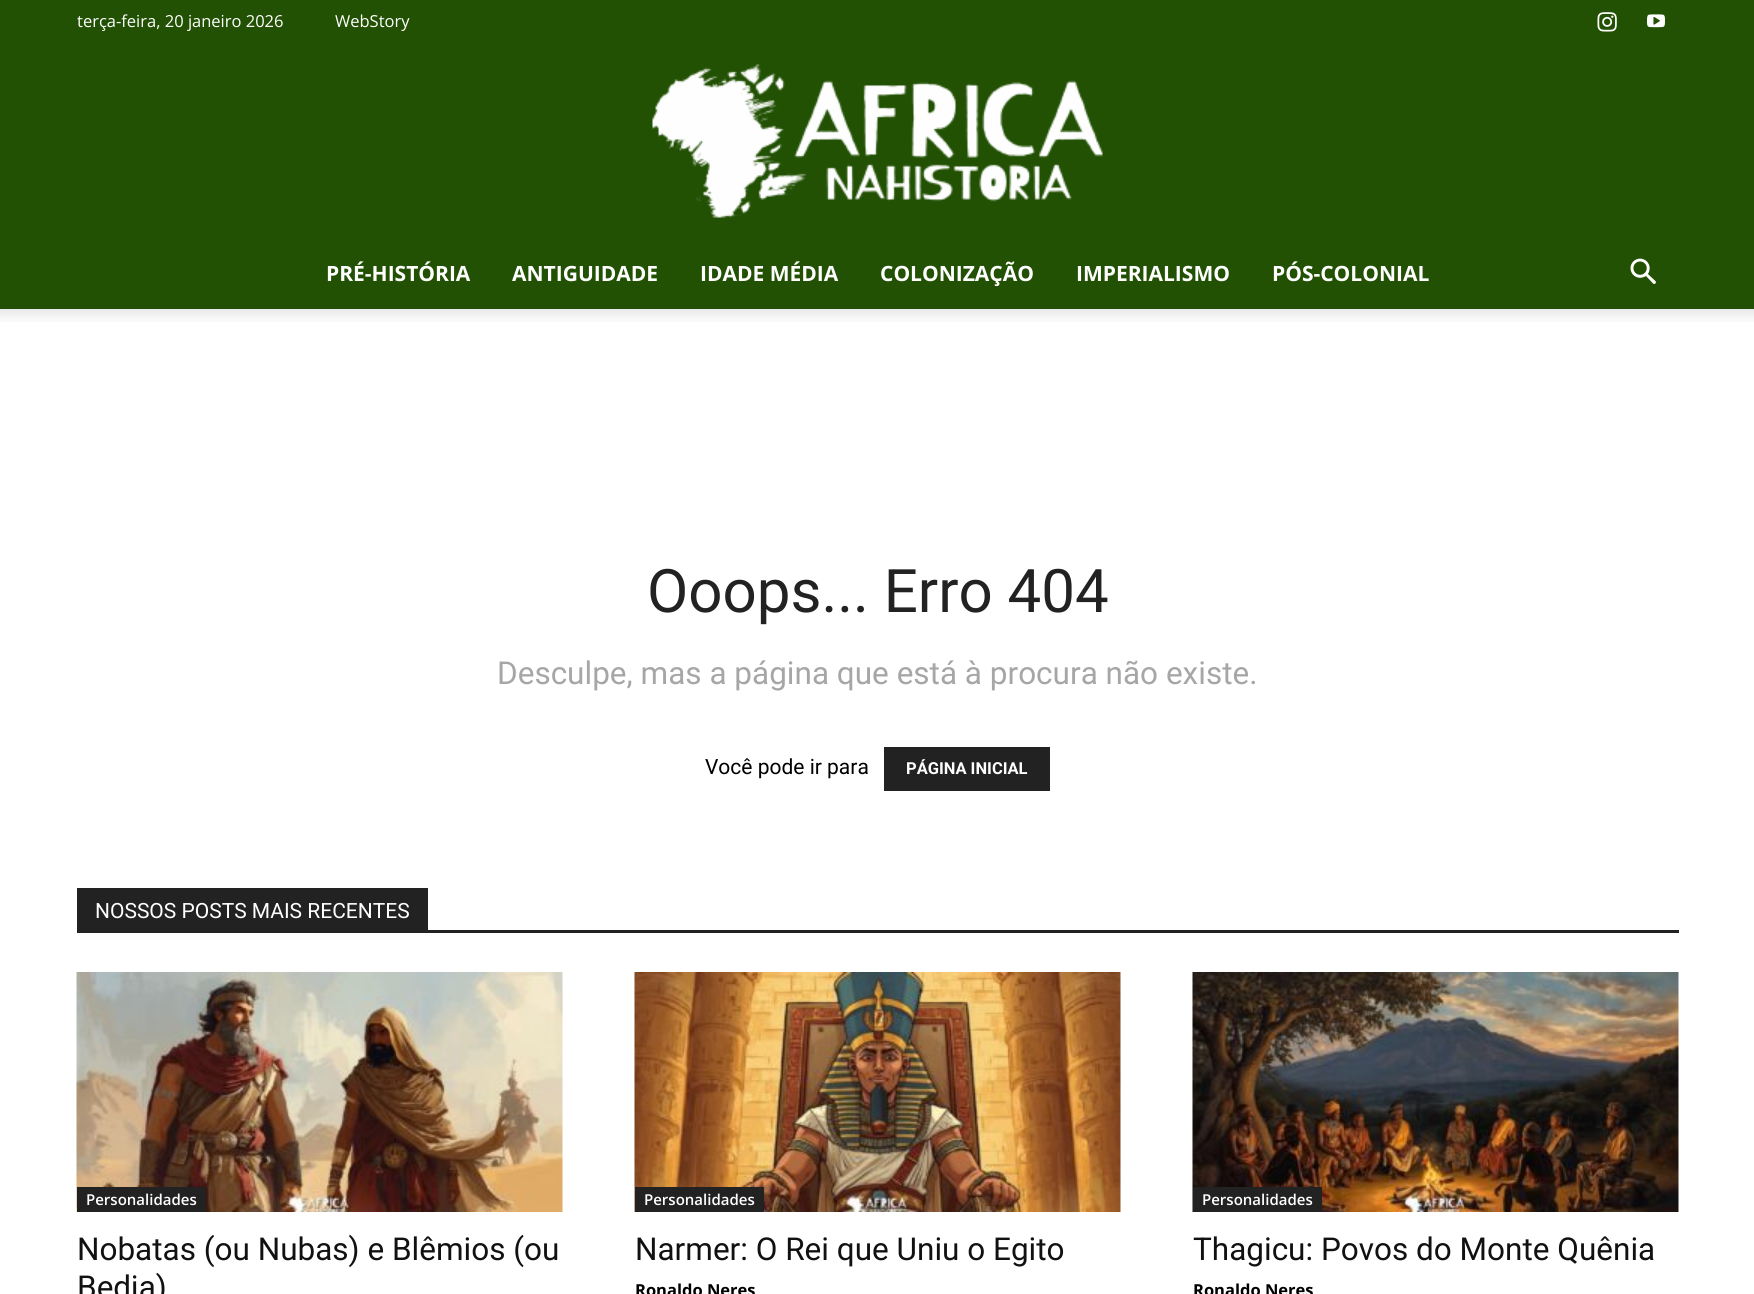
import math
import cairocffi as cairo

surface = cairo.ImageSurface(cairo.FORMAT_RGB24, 1754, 1294)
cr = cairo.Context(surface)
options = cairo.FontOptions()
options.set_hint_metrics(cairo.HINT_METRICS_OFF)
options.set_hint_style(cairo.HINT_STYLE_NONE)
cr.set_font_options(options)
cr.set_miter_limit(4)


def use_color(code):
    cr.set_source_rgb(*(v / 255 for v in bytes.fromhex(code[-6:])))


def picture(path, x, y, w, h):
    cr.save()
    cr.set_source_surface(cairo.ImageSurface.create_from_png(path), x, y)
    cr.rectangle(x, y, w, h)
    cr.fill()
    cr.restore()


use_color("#ffffff")
cr.paint()
use_color("#225104")
cr.rectangle(0, 0, 1754, 309)
cr.fill()
picture("img1.png", 652, 64, 451, 154)
cr.select_font_face("Open Sans")
cr.set_font_size(16.5)
use_color("#ffffff")
cr.move_to(77, 27)
cr.show_text("terça-feira, 20 janeiro 2026")
cr.move_to(335, 27)
cr.show_text("WebStory")
picture("img2.png", 1597, 12, 20, 20)
picture("img3.png", 1647, 14, 18, 14)
cr.select_font_face("Open Sans", cairo.FONT_SLANT_NORMAL, cairo.FONT_WEIGHT_BOLD)
cr.set_font_size(21)
cr.move_to(326, 281)
cr.show_text("PRÉ-HISTÓRIA")
cr.move_to(512, 281)
cr.show_text("ANTIGUIDADE")
cr.move_to(700, 281)
cr.show_text("IDADE MÉDIA")
cr.move_to(880, 281)
cr.show_text("COLONIZAÇÃO")
cr.move_to(1076, 281)
cr.show_text("IMPERIALISMO")
cr.move_to(1272, 281)
cr.show_text("PÓS-COLONIAL")
picture("img4.png", 1630, 258, 26, 26)
picture("img5.png", 0, 309, 1754, 13)
cr.select_font_face("Roboto")
cr.set_font_size(60)
use_color("#222222")
cr.move_to(647, 612)
cr.show_text("Ooops... Erro 404")
cr.set_font_size(31.5)
use_color("#a6a6a6")
cr.move_to(497, 684)
cr.show_text("Desculpe, mas a página que está à procura não existe.")
cr.set_font_size(21)
use_color("#000000")
cr.move_to(705, 774)
cr.show_text("Você pode ir para")
use_color("#222222")
cr.rectangle(884, 747, 166, 44)
cr.fill()
cr.select_font_face("Roboto", cairo.FONT_SLANT_NORMAL, cairo.FONT_WEIGHT_BOLD)
cr.set_font_size(16.5)
use_color("#ffffff")
cr.move_to(906, 774)
cr.show_text("PÁGINA INICIAL")
use_color("#222222")
cr.rectangle(77, 930, 1602, 3)
cr.fill()
cr.rectangle(77, 888, 351, 42)
cr.fill()
cr.select_font_face("Roboto")
cr.set_font_size(21)
use_color("#ffffff")
cr.move_to(95, 918)
cr.show_text("NOSSOS POSTS MAIS RECENTES")
picture("img6.png", 76, 972, 487, 240)
use_color("#222222")
cr.rectangle(77, 1187, 129, 25)
cr.fill()
cr.select_font_face("Open Sans SemiBold")
cr.set_font_size(15)
use_color("#ffffff")
cr.move_to(86, 1205)
cr.show_text("Personalidades")
cr.select_font_face("Roboto")
cr.set_font_size(31.5)
use_color("#111111")
cr.move_to(77, 1260)
cr.show_text("Nobatas (ou Nubas) e Blêmios (ou")
cr.move_to(77, 1298)
cr.show_text("Bedja)")
picture("img7.png", 634, 972, 487, 240)
use_color("#222222")
cr.rectangle(635, 1187, 129, 25)
cr.fill()
cr.select_font_face("Open Sans SemiBold")
cr.set_font_size(15)
use_color("#ffffff")
cr.move_to(644, 1205)
cr.show_text("Personalidades")
cr.select_font_face("Roboto")
cr.set_font_size(31.5)
use_color("#111111")
cr.move_to(635, 1260)
cr.show_text("Narmer: O Rei que Uniu o Egito")
cr.select_font_face("Open Sans", cairo.FONT_SLANT_NORMAL, cairo.FONT_WEIGHT_BOLD)
cr.set_font_size(16.5)
use_color("#000000")
cr.move_to(635, 1296)
cr.show_text("Ronaldo Neres")
picture("img8.png", 1192, 972, 487, 240)
use_color("#222222")
cr.rectangle(1193, 1187, 129, 25)
cr.fill()
cr.select_font_face("Open Sans SemiBold")
cr.set_font_size(15)
use_color("#ffffff")
cr.move_to(1202, 1205)
cr.show_text("Personalidades")
cr.select_font_face("Roboto")
cr.set_font_size(31.5)
use_color("#111111")
cr.move_to(1193, 1260)
cr.show_text("Thagicu: Povos do Monte Quênia")
cr.select_font_face("Open Sans", cairo.FONT_SLANT_NORMAL, cairo.FONT_WEIGHT_BOLD)
cr.set_font_size(16.5)
use_color("#000000")
cr.move_to(1193, 1296)
cr.show_text("Ronaldo Neres")
surface.write_to_png("result.png")
